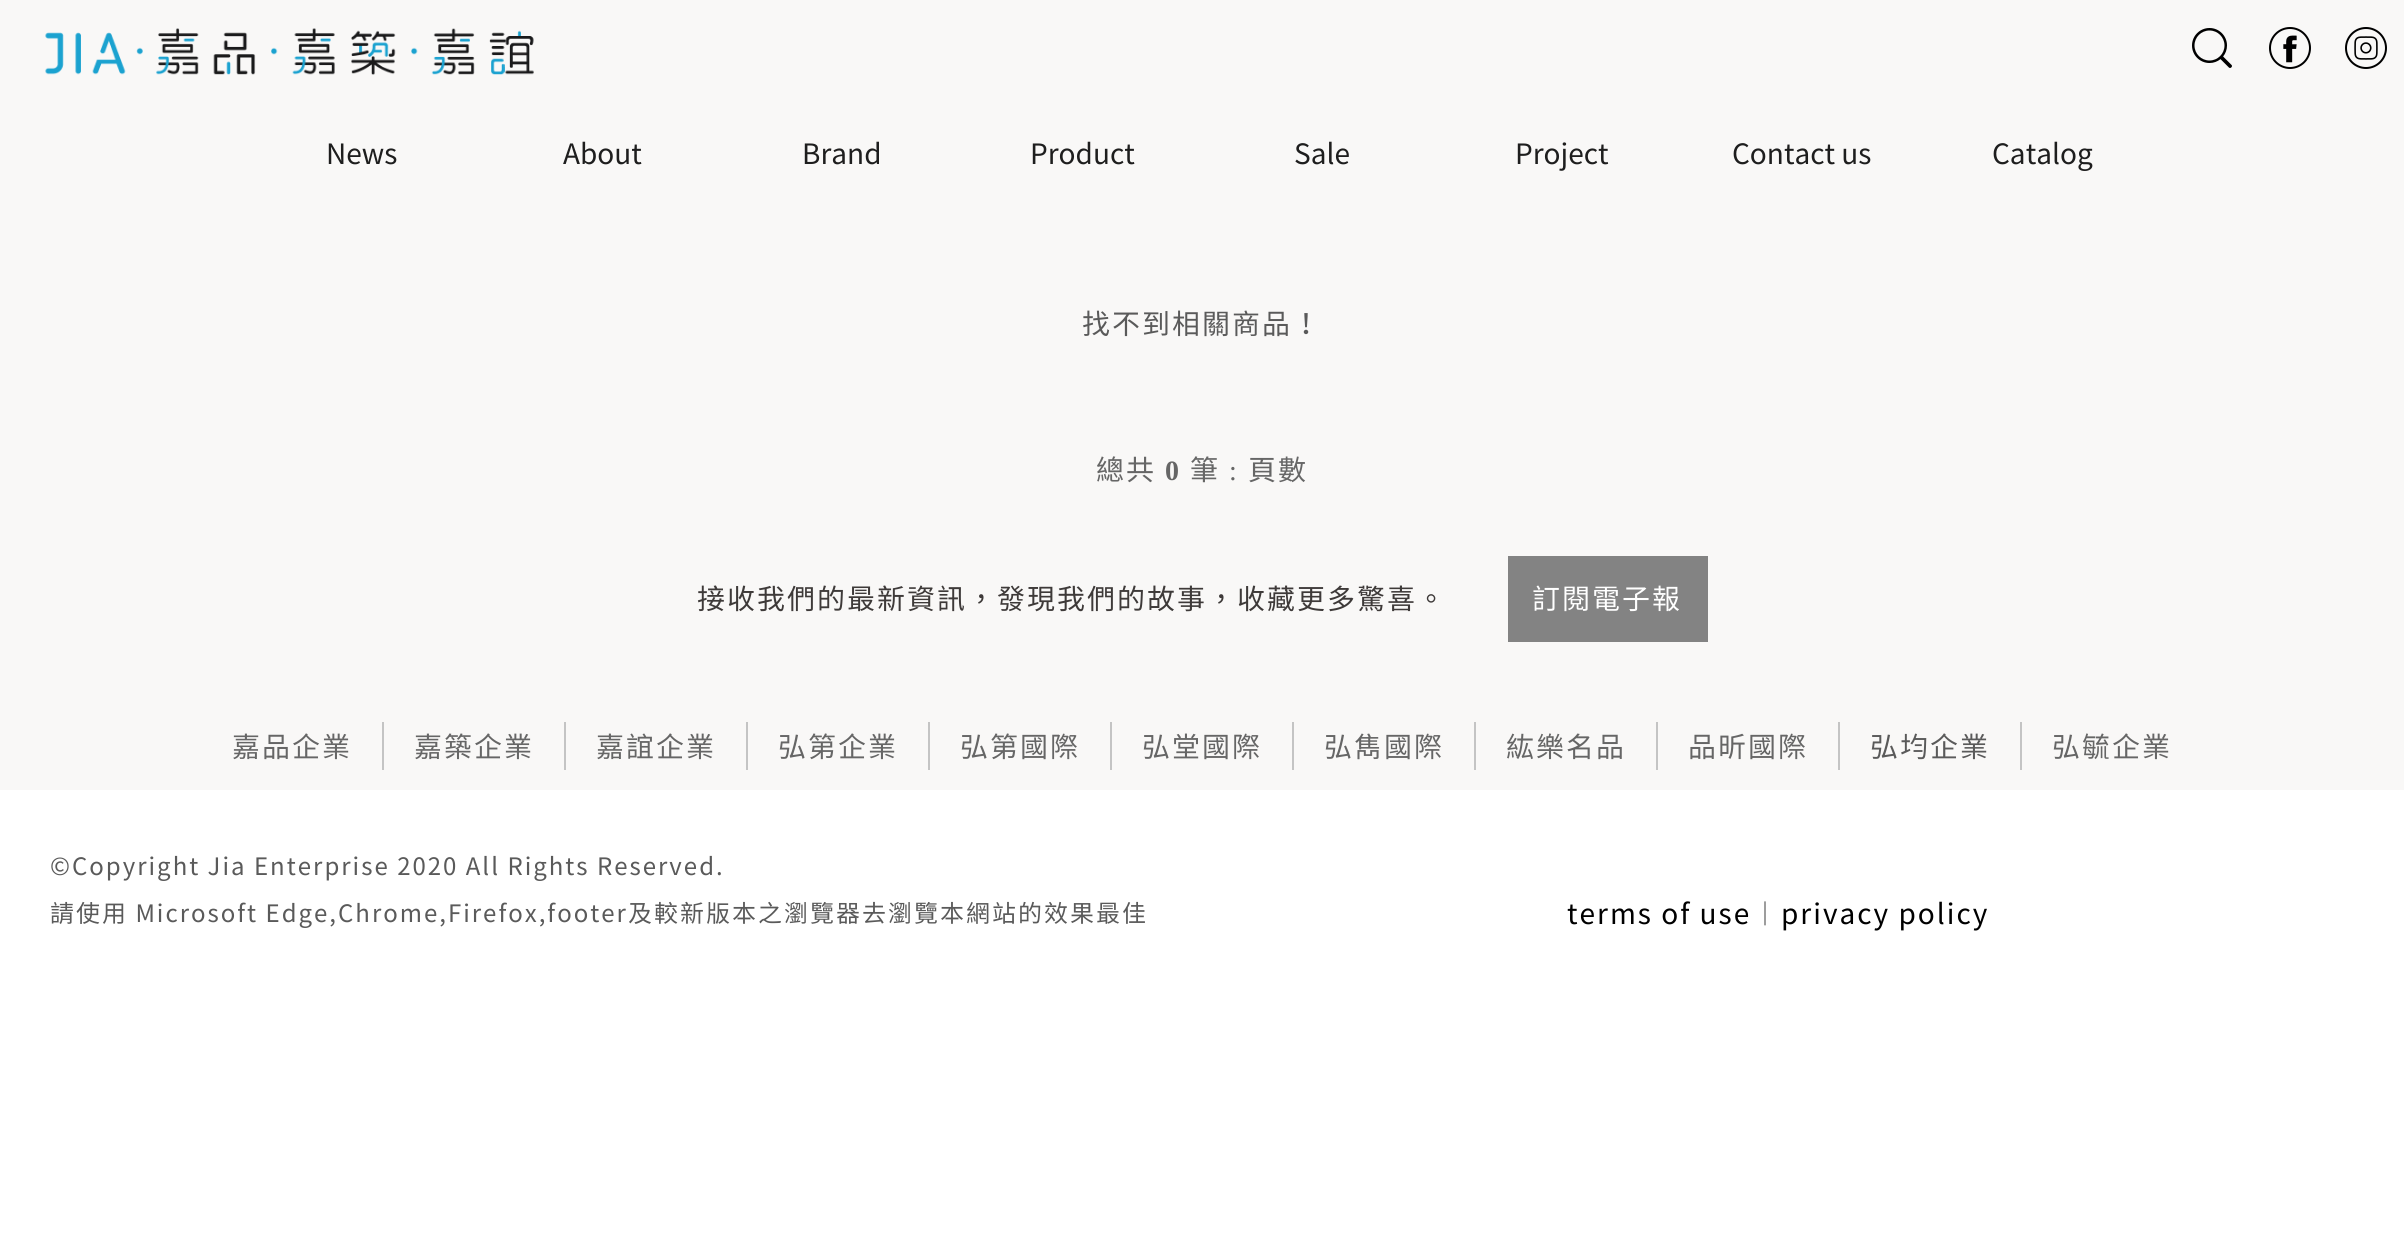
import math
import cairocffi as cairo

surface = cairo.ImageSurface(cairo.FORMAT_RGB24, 2404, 1245)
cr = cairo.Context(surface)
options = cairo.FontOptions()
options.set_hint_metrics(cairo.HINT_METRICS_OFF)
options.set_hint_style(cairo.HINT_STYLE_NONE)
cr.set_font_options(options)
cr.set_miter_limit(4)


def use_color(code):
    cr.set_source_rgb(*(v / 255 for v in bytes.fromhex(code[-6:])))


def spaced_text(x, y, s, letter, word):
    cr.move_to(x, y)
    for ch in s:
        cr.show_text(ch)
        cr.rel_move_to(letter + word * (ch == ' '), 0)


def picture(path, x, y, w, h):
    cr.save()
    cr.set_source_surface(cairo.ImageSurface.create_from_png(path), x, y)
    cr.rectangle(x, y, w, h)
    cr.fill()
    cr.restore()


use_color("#ffffff")
cr.paint()
use_color("#f9f8f7")
cr.rectangle(0, 0, 2404, 790)
cr.fill()
picture("img1.png", 45, 28, 489, 47)
picture("img2.png", 2192, 28, 40, 40)
picture("img3.png", 2269, 27, 42, 42)
picture("img4.png", 2345, 27, 42, 42)
cr.select_font_face("Noto Sans TC")
cr.set_font_size(28)
use_color("#1e1e1e")
cr.move_to(326, 164)
cr.show_text("News")
cr.move_to(563, 164)
cr.show_text("About")
cr.move_to(802, 164)
cr.show_text("Brand")
cr.move_to(1030, 164)
cr.show_text("Product")
cr.move_to(1294, 164)
cr.show_text("Sale")
cr.move_to(1515, 164)
cr.show_text("Project")
cr.move_to(1732, 164)
cr.show_text("Contact us")
cr.move_to(1992, 164)
cr.show_text("Catalog")
use_color("#5a5a5a")
spaced_text(1082, 334, "找不到相關商品！", 2, 0)
cr.select_font_face("Noto Sans CJK TC")
use_color("#666666")
spaced_text(1096, 480, "總共", 2, 0)
cr.select_font_face("Liberation Serif", cairo.FONT_SLANT_NORMAL, cairo.FONT_WEIGHT_BOLD)
spaced_text(1165, 480, "0", 2, 0)
cr.select_font_face("Noto Sans CJK TC")
spaced_text(1190, 480, "筆", 2, 0)
cr.select_font_face("Liberation Serif")
spaced_text(1229, 480, ":", 2, 0)
cr.select_font_face("Noto Sans CJK TC")
spaced_text(1248, 480, "頁數", 2, 0)
cr.select_font_face("Noto Sans TC")
use_color("#3e3a39")
spaced_text(697, 609, "接收我們的最新資訊，發現我們的故事，收藏更多驚喜。", 2, 0)
use_color("#838383")
cr.rectangle(1508, 556, 200, 86)
cr.fill()
use_color("#ffffff")
spaced_text(1532, 609, "訂閱電子報", 2, 0)
use_color("#c4c4c4")
cr.rectangle(382, 722, 2, 48)
cr.fill()
use_color("#666666")
spaced_text(232, 757, "嘉品企業", 2, 0)
use_color("#c4c4c4")
cr.rectangle(564, 722, 2, 48)
cr.fill()
use_color("#666666")
spaced_text(414, 757, "嘉築企業", 2, 0)
use_color("#c4c4c4")
cr.rectangle(746, 722, 2, 48)
cr.fill()
use_color("#666666")
spaced_text(596, 757, "嘉誼企業", 2, 0)
use_color("#c4c4c4")
cr.rectangle(928, 722, 2, 48)
cr.fill()
use_color("#666666")
spaced_text(778, 757, "弘第企業", 2, 0)
use_color("#c4c4c4")
cr.rectangle(1110, 722, 2, 48)
cr.fill()
use_color("#666666")
spaced_text(960, 757, "弘第國際", 2, 0)
use_color("#c4c4c4")
cr.rectangle(1292, 722, 2, 48)
cr.fill()
use_color("#666666")
spaced_text(1142, 757, "弘堂國際", 2, 0)
use_color("#c4c4c4")
cr.rectangle(1474, 722, 2, 48)
cr.fill()
use_color("#666666")
spaced_text(1324, 757, "弘雋國際", 2, 0)
use_color("#c4c4c4")
cr.rectangle(1656, 722, 2, 48)
cr.fill()
use_color("#666666")
spaced_text(1506, 757, "紘樂名品", 2, 0)
use_color("#c4c4c4")
cr.rectangle(1838, 722, 2, 48)
cr.fill()
use_color("#666666")
spaced_text(1688, 757, "品昕國際", 2, 0)
use_color("#c4c4c4")
cr.rectangle(2020, 722, 2, 48)
cr.fill()
use_color("#5a5a5a")
spaced_text(1870, 757, "弘均企業", 2, 0)
use_color("#666666")
spaced_text(2052, 757, "弘毓企業", 2, 0)
cr.set_font_size(24)
use_color("#5a5a5a")
spaced_text(50, 875, "©Copyright Jia Enterprise 2020 All Rights Reserved.", 2, 0)
spaced_text(50, 922, "請使用 Microsoft Edge,Chrome,Firefox,footer及較新版本之瀏覽器去瀏覽本網站的效果最佳", 2, 0)
cr.set_font_size(28)
use_color("#000000")
spaced_text(1567, 924, "terms of use", 2, 0)
use_color("#5a5a5a")
spaced_text(1751, 924, "︱", 2, 0)
use_color("#000000")
spaced_text(1781, 924, "privacy policy", 2, 0)
surface.write_to_png("result.png")
